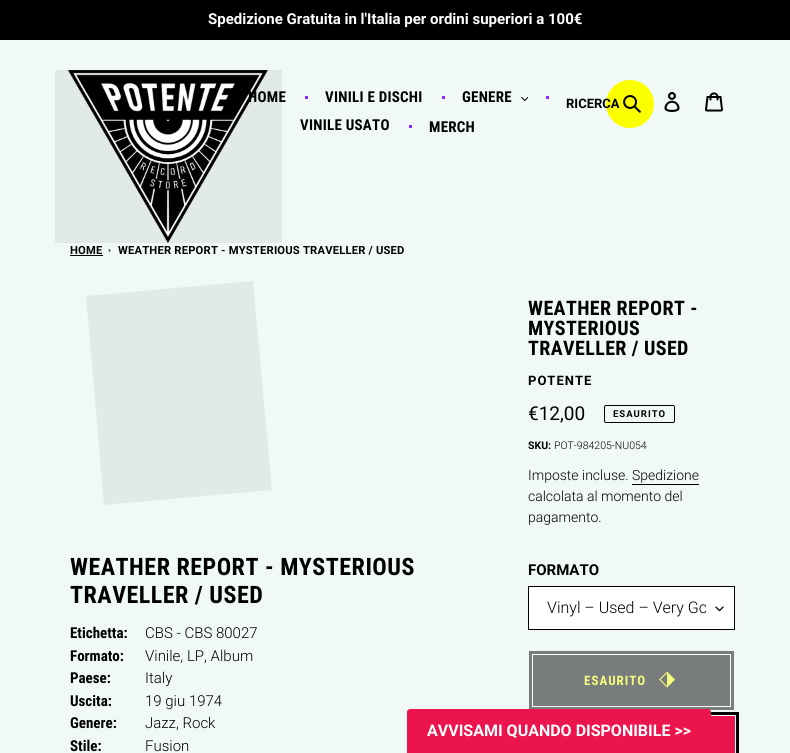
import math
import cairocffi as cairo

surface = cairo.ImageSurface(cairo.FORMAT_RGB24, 790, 753)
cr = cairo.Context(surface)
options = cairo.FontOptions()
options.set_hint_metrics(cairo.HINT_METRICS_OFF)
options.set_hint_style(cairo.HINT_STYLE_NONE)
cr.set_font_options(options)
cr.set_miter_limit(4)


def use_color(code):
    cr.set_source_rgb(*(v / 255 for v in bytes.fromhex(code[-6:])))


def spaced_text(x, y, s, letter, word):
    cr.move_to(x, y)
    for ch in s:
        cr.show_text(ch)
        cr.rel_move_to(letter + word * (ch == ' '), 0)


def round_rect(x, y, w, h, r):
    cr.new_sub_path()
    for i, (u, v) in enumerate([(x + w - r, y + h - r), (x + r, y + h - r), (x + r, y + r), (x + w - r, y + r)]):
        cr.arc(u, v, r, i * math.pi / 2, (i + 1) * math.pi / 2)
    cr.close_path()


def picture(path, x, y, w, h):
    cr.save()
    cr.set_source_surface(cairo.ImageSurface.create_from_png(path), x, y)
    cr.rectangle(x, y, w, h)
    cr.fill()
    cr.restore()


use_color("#f0f8f8")
cr.paint()
use_color("#000000")
cr.rectangle(0, 0, 790, 40)
cr.fill()
cr.select_font_face("Roboto", cairo.FONT_SLANT_NORMAL, cairo.FONT_WEIGHT_BOLD)
cr.set_font_size(15)
use_color("#ffffff")
cr.move_to(208, 24)
cr.show_text("Spedizione Gratuita in l'Italia per ordini superiori a 100€")
use_color("#e2e9e9")
cr.rectangle(55, 70, 227, 173)
cr.fill()
picture("img2.png", 68, 70, 200, 173)
cr.select_font_face("Roboto Condensed", cairo.FONT_SLANT_NORMAL, cairo.FONT_WEIGHT_BOLD)
use_color("#000000")
spaced_text(248, 102, "HOME", 0.25, 0)
use_color("#8e2afe")
cr.rectangle(305, 96, 3, 3)
cr.fill()
use_color("#000000")
spaced_text(325, 102, "VINILI E DISCHI", 0.25, 0)
use_color("#8e2afe")
cr.rectangle(442, 96, 3, 3)
cr.fill()
use_color("#000000")
spaced_text(462, 102, "GENERE", 0.25, 0)
picture("img1.png", 521, 97, 7, 4)
use_color("#8e2afe")
cr.rectangle(546, 96, 3, 3)
cr.fill()
use_color("#000000")
spaced_text(300, 130, "VINILE USATO", 0.25, 0)
use_color("#8e2afe")
cr.rectangle(409, 125, 3, 3)
cr.fill()
use_color("#000000")
spaced_text(429, 132, "MERCH", 0.25, 0)
use_color("#fbff00")
cr.new_path()
cr.arc(630, 104, 24, 0, 2 * math.pi)
cr.fill()
cr.select_font_face("Roboto", cairo.FONT_SLANT_NORMAL, cairo.FONT_WEIGHT_BOLD)
cr.set_font_size(13)
use_color("#000000")
cr.move_to(566, 108)
cr.show_text("RICERCA")
picture("img3.png", 623, 95, 18, 18)
picture("img4.png", 664, 92, 16, 20)
picture("img5.png", 705, 92, 18, 20)
cr.set_font_size(11.2)
spaced_text(70, 254, "HOME", 0.2, 0)
cr.rectangle(70, 255, 33, 1)
cr.fill()
cr.new_path()
cr.move_to(109, 249)
cr.line_to(110.5, 250.5)
cr.line_to(110, 251)
cr.line_to(108.5, 249.5)
cr.close_path()
cr.fill()
cr.new_path()
cr.move_to(110, 250)
cr.line_to(110.5, 250.5)
cr.line_to(109, 252)
cr.line_to(108.5, 251.5)
cr.close_path()
cr.fill()
spaced_text(118, 254, "WEATHER REPORT - MYSTERIOUS TRAVELLER / USED", 0.2, 0)
use_color("#e2e9e9")
cr.new_path()
cr.move_to(86, 296)
cr.line_to(253, 281)
cr.line_to(272, 490)
cr.line_to(104, 505)
cr.close_path()
cr.fill()
cr.select_font_face("Roboto Condensed", cairo.FONT_SLANT_NORMAL, cairo.FONT_WEIGHT_BOLD)
cr.set_font_size(24)
use_color("#000000")
spaced_text(70, 575, "WEATHER REPORT - MYSTERIOUS", 0.5, 0)
spaced_text(70, 603, "TRAVELLER / USED", 0.5, 0)
cr.set_font_size(15)
cr.move_to(70, 638)
cr.show_text("Etichetta:")
cr.select_font_face("Roboto Light")
cr.move_to(145, 638)
cr.show_text("CBS - CBS 80027")
cr.select_font_face("Roboto Condensed", cairo.FONT_SLANT_NORMAL, cairo.FONT_WEIGHT_BOLD)
cr.move_to(70, 661)
cr.show_text("Formato:")
cr.select_font_face("Roboto Light")
cr.move_to(145, 661)
cr.show_text("Vinile, LP, Album")
cr.select_font_face("Roboto Condensed", cairo.FONT_SLANT_NORMAL, cairo.FONT_WEIGHT_BOLD)
cr.move_to(70, 683)
cr.show_text("Paese:")
cr.select_font_face("Roboto Light")
cr.move_to(145, 683)
cr.show_text("Italy")
cr.select_font_face("Roboto Condensed", cairo.FONT_SLANT_NORMAL, cairo.FONT_WEIGHT_BOLD)
cr.move_to(70, 706)
cr.show_text("Uscita:")
cr.select_font_face("Roboto Light")
cr.move_to(145, 706)
cr.show_text("19 giu 1974")
cr.select_font_face("Roboto Condensed", cairo.FONT_SLANT_NORMAL, cairo.FONT_WEIGHT_BOLD)
cr.move_to(70, 728)
cr.show_text("Genere:")
cr.select_font_face("Roboto Light")
cr.move_to(145, 728)
cr.show_text("Jazz, Rock")
cr.select_font_face("Roboto Condensed", cairo.FONT_SLANT_NORMAL, cairo.FONT_WEIGHT_BOLD)
cr.move_to(70, 751)
cr.show_text("Stile:")
cr.select_font_face("Roboto Light")
cr.move_to(145, 751)
cr.show_text("Fusion")
cr.select_font_face("Roboto Condensed", cairo.FONT_SLANT_NORMAL, cairo.FONT_WEIGHT_BOLD)
cr.set_font_size(20)
spaced_text(528, 315, "WEATHER REPORT -", 0.4, 0)
spaced_text(528, 335, "MYSTERIOUS", 0.4, 0)
spaced_text(528, 355, "TRAVELLER / USED", 0.4, 0)
cr.select_font_face("Roboto", cairo.FONT_SLANT_NORMAL, cairo.FONT_WEIGHT_BOLD)
cr.set_font_size(13)
spaced_text(528, 385, "POTENTE", 1, 0)
cr.select_font_face("Roboto")
cr.set_font_size(19)
cr.move_to(528, 420)
cr.show_text("€12,00")
round_rect(604.5, 405.5, 70, 17, 1.5)
cr.set_line_width(1)
cr.stroke()
cr.select_font_face("Roboto", cairo.FONT_SLANT_NORMAL, cairo.FONT_WEIGHT_BOLD)
cr.set_font_size(9.5)
spaced_text(613, 417, "ESAURITO", 1, 0)
cr.set_font_size(10.5)
cr.move_to(528, 449)
cr.show_text("SKU:")
cr.select_font_face("Roboto Light")
cr.move_to(554, 449)
cr.show_text("POT-984205-NU054")
cr.set_font_size(14)
cr.move_to(528, 480)
cr.show_text("Imposte incluse. Spedizione")
cr.rectangle(632, 484, 67, 1)
cr.fill()
cr.move_to(528, 501)
cr.show_text("calcolata al momento del")
cr.move_to(528, 522)
cr.show_text("pagamento.")
cr.select_font_face("Roboto", cairo.FONT_SLANT_NORMAL, cairo.FONT_WEIGHT_BOLD)
cr.set_font_size(15)
cr.move_to(528, 575)
cr.show_text("FORMATO")
use_color("#ffffff")
cr.rectangle(529, 587, 205, 42)
cr.fill()
picture("img6.png", 715, 606, 9, 6)
cr.rectangle(528.5, 586.5, 206, 43)
use_color("#000000")
cr.stroke()
cr.save()
cr.rectangle(547, 598, 159, 20)
cr.clip()
cr.select_font_face("Roboto Light")
cr.set_font_size(16)
cr.move_to(547, 613)
cr.show_text("Vinyl – Used – Very Go")
cr.restore()
cr.rectangle(531, 653, 201, 55)
use_color("#787c7c")
cr.set_line_width(4)
cr.stroke()
cr.rectangle(532.5, 654.5, 198, 52)
use_color("#f8fcfc")
cr.set_line_width(1)
cr.stroke()
use_color("#787c7c")
cr.rectangle(533, 655, 197, 51)
cr.fill()
cr.select_font_face("Roboto Condensed", cairo.FONT_SLANT_NORMAL, cairo.FONT_WEIGHT_BOLD)
cr.set_font_size(13)
use_color("#f6fc7c")
spaced_text(584, 685, "ESAURITO", 1, 0)
cr.select_font_face("DejaVu Sans")
cr.set_font_size(21)
spaced_text(659, 685, "⬗", 1, 0)
cr.rectangle(526, 714, 211, 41)
use_color("#000000")
cr.set_line_width(4)
cr.stroke()
cr.rectangle(527.5, 715.5, 208, 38)
use_color("#ffffff")
cr.set_line_width(1)
cr.stroke()
use_color("#eb144c")
cr.rectangle(711, 716, 24, 37)
cr.fill()
cr.new_path()
cr.move_to(410, 709)
cr.line_to(708, 709)
cr.curve_to(709.5, 709, 711, 710.5, 711, 712)
cr.line_to(711, 753)
cr.line_to(407, 753)
cr.line_to(407, 712)
cr.curve_to(407, 710.5, 408.5, 709, 410, 709)
cr.close_path()
cr.fill()
cr.select_font_face("Roboto", cairo.FONT_SLANT_NORMAL, cairo.FONT_WEIGHT_BOLD)
cr.set_font_size(16)
use_color("#ffffff")
cr.move_to(427, 736)
cr.show_text("AVVISAMI QUANDO DISPONIBILE >>")
surface.write_to_png("result.png")
